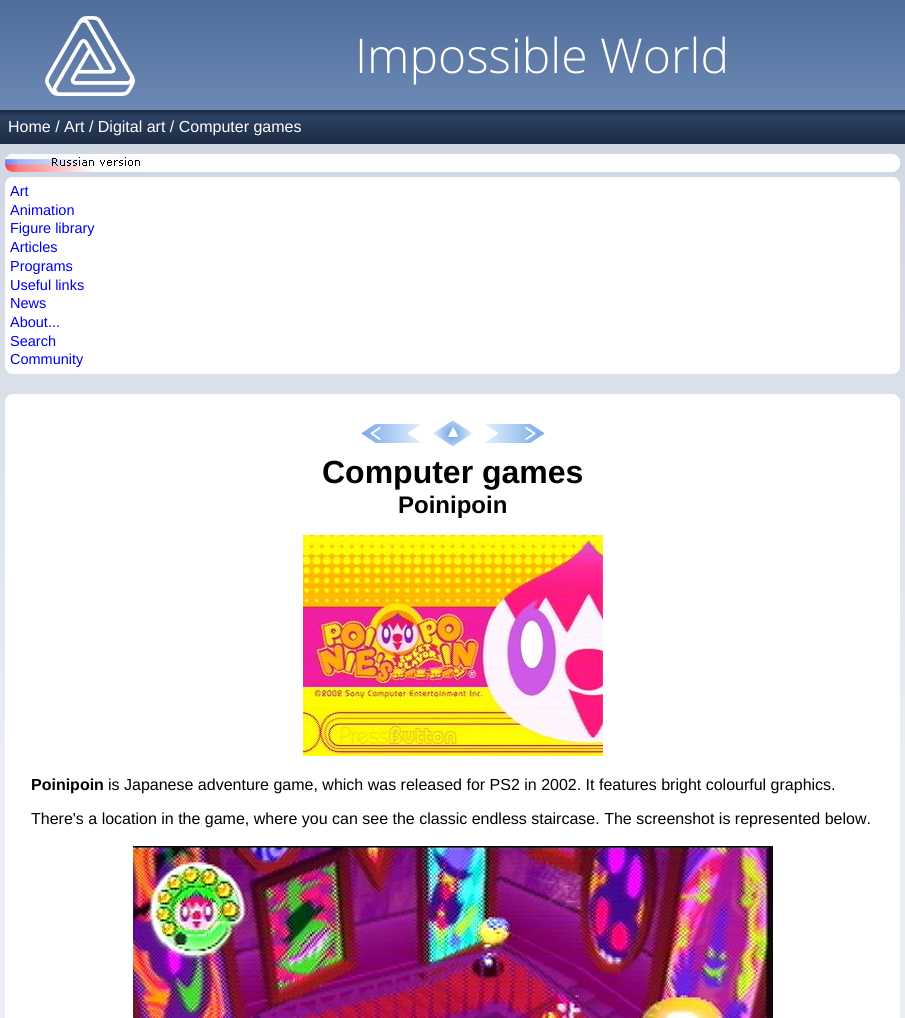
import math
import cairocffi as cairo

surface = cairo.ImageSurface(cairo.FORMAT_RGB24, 905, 1018)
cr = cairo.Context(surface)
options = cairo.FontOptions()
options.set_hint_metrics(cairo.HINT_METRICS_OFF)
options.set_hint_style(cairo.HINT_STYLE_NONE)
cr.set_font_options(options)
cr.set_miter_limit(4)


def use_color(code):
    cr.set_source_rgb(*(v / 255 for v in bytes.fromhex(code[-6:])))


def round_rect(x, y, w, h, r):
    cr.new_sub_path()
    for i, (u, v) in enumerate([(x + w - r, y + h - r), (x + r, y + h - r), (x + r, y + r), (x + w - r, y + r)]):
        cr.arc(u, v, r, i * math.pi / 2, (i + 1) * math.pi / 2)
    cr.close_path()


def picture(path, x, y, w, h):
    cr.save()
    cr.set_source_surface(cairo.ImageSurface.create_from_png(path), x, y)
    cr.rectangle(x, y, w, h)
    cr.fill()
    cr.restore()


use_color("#ffffff")
cr.paint()
gradient = cairo.LinearGradient(452, 0, 453, 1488)
gradient.add_color_stop_rgba(0.07, 0.808, 0.839, 0.89, 1)
gradient.add_color_stop_rgba(0.54, 0.922, 0.937, 0.961, 1)
cr.set_source(gradient)
cr.rectangle(0, 144, 905, 874)
cr.fill()
gradient = cairo.LinearGradient(453, 0, 453, 110)
gradient.add_color_stop_rgba(0, 0.31, 0.427, 0.612, 1)
gradient.add_color_stop_rgba(1, 0.427, 0.537, 0.702, 1)
cr.set_source(gradient)
cr.rectangle(0, 0, 905, 110)
cr.fill()
picture("img1.png", 45, 16, 90, 80)
cr.select_font_face("Open Sans Light")
cr.set_font_size(48)
use_color("#ffffff")
cr.move_to(355, 73)
cr.show_text("Impossible World")
gradient = cairo.LinearGradient(453, 110, 453, 144)
gradient.add_color_stop_rgba(0, 0.114, 0.169, 0.263, 1)
gradient.add_color_stop_rgba(0.2, 0.169, 0.255, 0.38, 1)
gradient.add_color_stop_rgba(1, 0.114, 0.169, 0.263, 1)
cr.set_source(gradient)
cr.rectangle(0, 110, 905, 34)
cr.fill()
cr.select_font_face("Liberation Sans")
cr.set_font_size(16)
use_color("#ffffff")
cr.move_to(8, 132)
cr.show_text("Home / Art / Digital art / Computer games")
round_rect(5, 154, 895, 18, 8)
cr.fill()
picture("img2.png", 5, 154, 135, 18)
round_rect(5, 177, 895, 197, 8)
cr.fill()
cr.set_font_size(14.5)
use_color("#0000ee")
cr.move_to(10, 196)
cr.show_text("Art")
cr.move_to(10, 215)
cr.show_text("Animation")
cr.move_to(10, 233)
cr.show_text("Figure library")
cr.move_to(10, 252)
cr.show_text("Articles")
cr.move_to(10, 271)
cr.show_text("Programs")
cr.move_to(10, 290)
cr.show_text("Useful links")
cr.move_to(10, 308)
cr.show_text("News")
cr.move_to(10, 327)
cr.show_text("About...")
cr.move_to(10, 346)
cr.show_text("Search")
cr.move_to(10, 364)
cr.show_text("Community")
use_color("#ffffff")
round_rect(5, 394, 895, 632, 8)
cr.fill()
picture("img3.png", 361, 424, 60, 19)
picture("img4.png", 433, 420, 39, 27)
picture("img5.png", 485, 424, 60, 19)
cr.select_font_face("Liberation Sans", cairo.FONT_SLANT_NORMAL, cairo.FONT_WEIGHT_BOLD)
cr.set_font_size(32)
use_color("#000000")
cr.move_to(322, 483)
cr.show_text("Computer games")
cr.set_font_size(24)
cr.move_to(398, 513)
cr.show_text("Poinipoin")
picture("img6.png", 303, 535, 300, 221)
cr.set_font_size(16)
cr.move_to(31, 790)
cr.show_text("Poinipoin")
cr.select_font_face("Liberation Sans")
cr.move_to(108, 790)
cr.show_text("is Japanese adventure game, which was released for PS2 in 2002. It features bright colourful graphics.")
cr.move_to(31, 824)
cr.show_text("There's a location in the game, where you can see the classic endless staircase. The screenshot is represented below.")
picture("img7.png", 133, 846, 640, 172)
surface.write_to_png("result.png")
